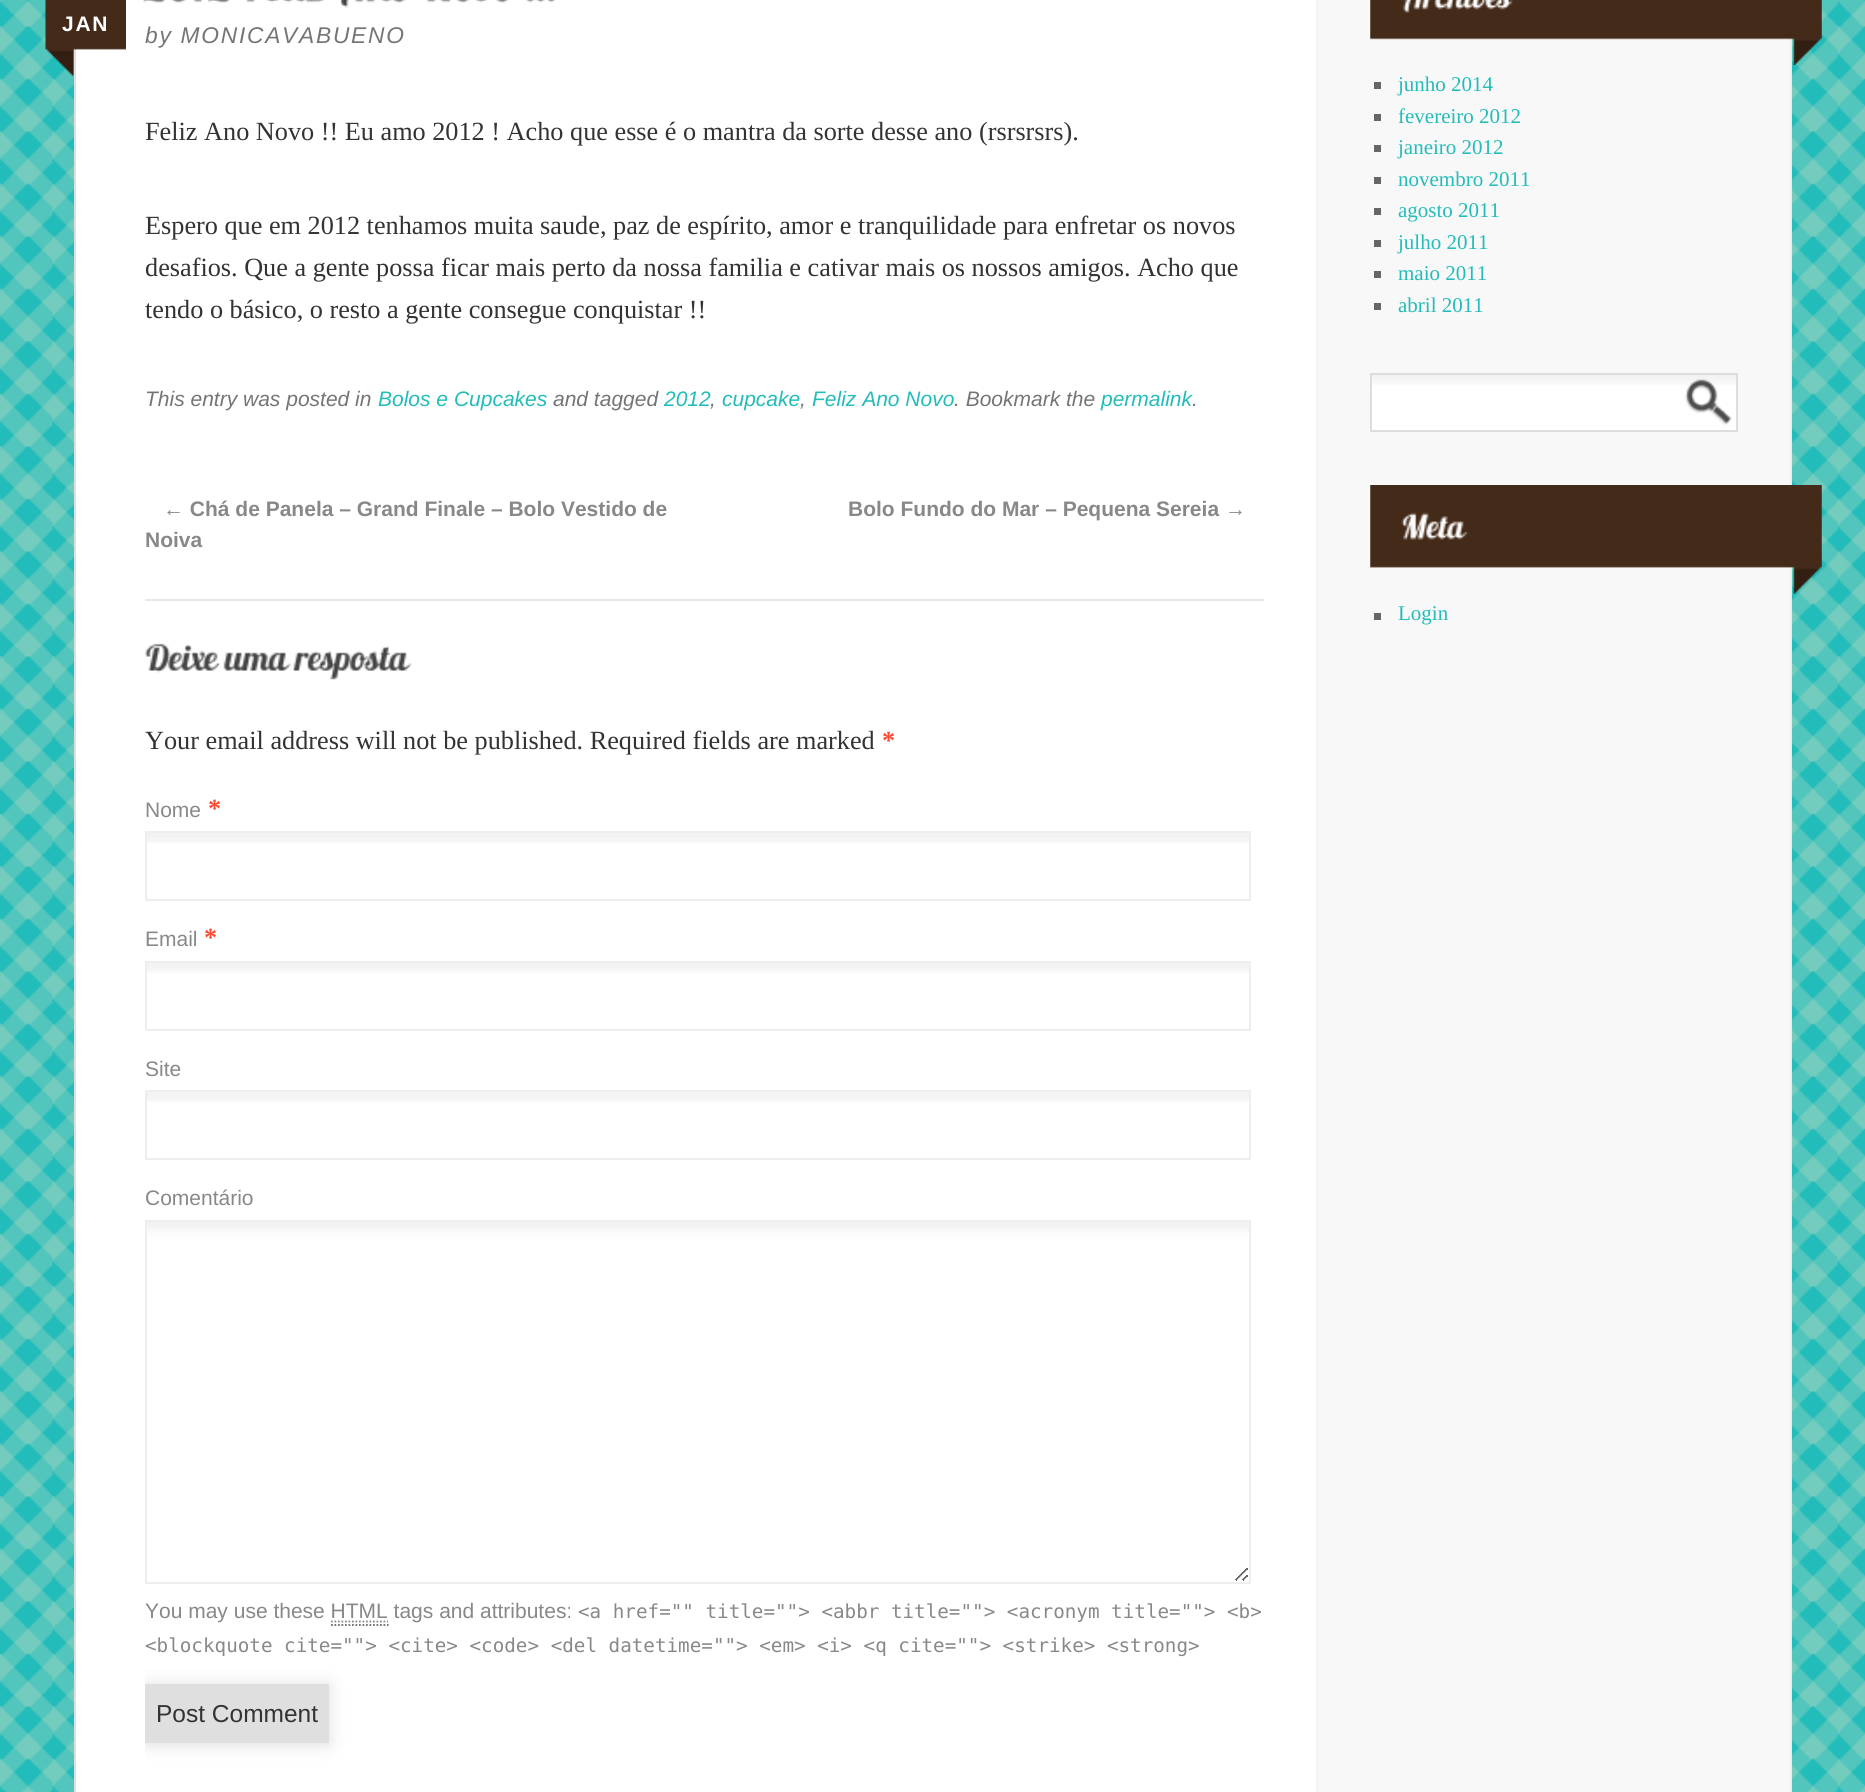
import math
import cairocffi as cairo

surface = cairo.ImageSurface(cairo.FORMAT_RGB24, 1865, 1792)
cr = cairo.Context(surface)
options = cairo.FontOptions()
options.set_hint_metrics(cairo.HINT_METRICS_OFF)
options.set_hint_style(cairo.HINT_STYLE_NONE)
cr.set_font_options(options)
cr.set_miter_limit(4)


def use_color(code):
    cr.set_source_rgb(*(v / 255 for v in bytes.fromhex(code[-6:])))


def spaced_text(x, y, s, letter, word):
    cr.move_to(x, y)
    for ch in s:
        cr.show_text(ch)
        cr.rel_move_to(letter + word * (ch == ' '), 0)


def round_rect(x, y, w, h, r):
    cr.new_sub_path()
    for i, (u, v) in enumerate([(x + w - r, y + h - r), (x + r, y + h - r), (x + r, y + r), (x + w - r, y + r)]):
        cr.arc(u, v, r, i * math.pi / 2, (i + 1) * math.pi / 2)
    cr.close_path()


def shadow(x, y, w, h, r, blur, alpha):
    cr.push_group_with_content(cairo.CONTENT_ALPHA)
    cr.set_operator(cairo.OPERATOR_SOURCE)
    for i in range(15, -16, -2):
        e = blur * i / 6
        if min(w, h) + 2 * e > 0:
            cr.set_source_rgba(0, 0, 0, alpha * math.erfc((i - 1) / 8.5) / 2)
            round_rect(x - e, y - e, w + 2 * e, h + 2 * e, max(0, min(r + e + blur * .6, min(w, h) / 2 + e)))
            cr.fill()
    cr.mask(cr.pop_group())


def picture(path, x, y, w, h):
    cr.save()
    cr.set_source_surface(cairo.ImageSurface.create_from_png(path), x, y)
    cr.rectangle(x, y, w, h)
    cr.fill()
    cr.restore()


use_color("#ffffff")
cr.paint()
picture("img1.png", 0, 0, 1865, 1792)
use_color("#ffffff")
cr.rectangle(76, 0, 1240, 1792)
cr.fill()
picture("img2.png", 1316, 0, 474, 1792)
use_color("#eeeeee")
cr.rectangle(1790, 38, 2, 1754)
cr.fill()
use_color("#dfdfdf")
cr.rectangle(74, 48, 2, 1744)
cr.fill()
picture("img3.png", 143, 0, 87, 3)
picture("img4.png", 246, 0, 78, 3)
picture("img5.png", 340, 0, 66, 8)
picture("img6.png", 426, 0, 83, 3)
picture("img7.png", 526, 0, 30, 3)
picture("img8.png", 45, 0, 81, 76)
cr.select_font_face("Liberation Sans", cairo.FONT_SLANT_NORMAL, cairo.FONT_WEIGHT_BOLD)
cr.set_font_size(21)
use_color("#ffffff")
spaced_text(62, 31, "JAN", 1.75, 0)
cr.select_font_face("Liberation Sans", cairo.FONT_SLANT_ITALIC)
cr.set_font_size(22.75)
use_color("#757575")
spaced_text(145, 43, "by MONICAVABUENO", 1.75, 0)
cr.select_font_face("Liberation Serif")
cr.set_font_size(26.25)
use_color("#333333")
cr.move_to(145, 140)
cr.show_text("Feliz Ano Novo !! Eu amo 2012 ! Acho que esse é o mantra da sorte desse ano (rsrsrsrs).")
cr.move_to(145, 234)
cr.show_text("Espero que em 2012 tenhamos muita saude, paz de espírito, amor e tranquilidade para enfretar os novos")
cr.move_to(145, 276)
cr.show_text("desafios. Que a gente possa ficar mais perto da nossa familia e cativar mais os nossos amigos. Acho que")
cr.move_to(145, 318)
cr.show_text("tendo o básico, o resto a gente consegue conquistar !!")
cr.select_font_face("Liberation Sans", cairo.FONT_SLANT_ITALIC)
cr.set_font_size(21)
use_color("#757575")
cr.move_to(145, 406)
cr.show_text("This entry was posted in")
use_color("#22bcba")
cr.move_to(378, 406)
cr.show_text("Bolos e Cupcakes")
use_color("#757575")
cr.move_to(553, 406)
cr.show_text("and tagged")
use_color("#22bcba")
cr.move_to(664, 406)
cr.show_text("2012")
use_color("#757575")
cr.move_to(710, 406)
cr.show_text(",")
use_color("#22bcba")
cr.move_to(722, 406)
cr.show_text("cupcake")
use_color("#757575")
cr.move_to(800, 406)
cr.show_text(",")
use_color("#22bcba")
cr.move_to(812, 406)
cr.show_text("Feliz Ano Novo")
use_color("#757575")
cr.move_to(954, 406)
cr.show_text(". Bookmark the")
use_color("#22bcba")
cr.move_to(1101, 406)
cr.show_text("permalink")
use_color("#757575")
cr.move_to(1192, 406)
cr.show_text(".")
cr.select_font_face("Liberation Sans", cairo.FONT_SLANT_NORMAL, cairo.FONT_WEIGHT_BOLD)
use_color("#888888")
cr.move_to(163, 516)
cr.show_text("← Chá de Panela – Grand Finale – Bolo Vestido de")
cr.move_to(145, 547)
cr.show_text("Noiva")
cr.move_to(848, 516)
cr.show_text("Bolo Fundo do Mar – Pequena Sereia →")
use_color("#e7e7e7")
cr.rectangle(145, 599, 1119, 2)
cr.fill()
picture("img9.png", 145, 643, 75, 30)
picture("img10.png", 223, 652, 68, 19)
picture("img11.png", 292, 645, 120, 35)
cr.select_font_face("Liberation Serif")
cr.set_font_size(26.25)
use_color("#333333")
cr.move_to(145, 749)
cr.show_text("Your email address will not be published. Required fields are marked")
cr.select_font_face("Liberation Serif", cairo.FONT_SLANT_NORMAL, cairo.FONT_WEIGHT_BOLD)
use_color("#ff4b33")
cr.move_to(882, 749)
cr.show_text("*")
cr.select_font_face("Liberation Sans")
cr.set_font_size(21)
use_color("#888888")
cr.move_to(145, 817)
cr.show_text("Nome")
cr.select_font_face("Liberation Serif", cairo.FONT_SLANT_NORMAL, cairo.FONT_WEIGHT_BOLD)
cr.set_font_size(26.25)
use_color("#ff4b33")
cr.move_to(208, 817)
cr.show_text("*")
picture("img12.png", 147, 833, 1102, 10)
cr.rectangle(146, 832, 1104, 68)
use_color("#eeeeee")
cr.stroke()
cr.select_font_face("Liberation Sans")
cr.set_font_size(21)
use_color("#888888")
cr.move_to(145, 946)
cr.show_text("Email")
cr.select_font_face("Liberation Serif", cairo.FONT_SLANT_NORMAL, cairo.FONT_WEIGHT_BOLD)
cr.set_font_size(26.25)
use_color("#ff4b33")
cr.move_to(204, 946)
cr.show_text("*")
picture("img13.png", 147, 963, 1102, 10)
cr.rectangle(146, 962, 1104, 68)
use_color("#eeeeee")
cr.stroke()
cr.select_font_face("Liberation Sans")
cr.set_font_size(21)
use_color("#888888")
cr.move_to(145, 1076)
cr.show_text("Site")
picture("img12.png", 147, 1092, 1102, 10)
cr.rectangle(146, 1091, 1104, 68)
use_color("#eeeeee")
cr.stroke()
use_color("#888888")
cr.move_to(145, 1205)
cr.show_text("Comentário")
picture("img14.png", 147, 1222, 1102, 359)
cr.rectangle(146, 1221, 1104, 362)
use_color("#eeeeee")
cr.stroke()
use_color("#888888")
cr.move_to(145, 1618)
cr.show_text("You may use these HTML tags and attributes:")
cr.select_font_face("DejaVu Sans Mono")
cr.set_font_size(19.25)
cr.move_to(578, 1618)
cr.show_text("<a href=\"\" title=\"\"> <abbr title=\"\"> <acronym title=\"\"> <b>")
cr.new_path()
cr.move_to(331, 1621.5)
cr.line_to(388, 1621.5)
cr.set_line_width(1.8)
cr.set_dash([1.75, 1.75])
cr.stroke()
cr.new_path()
cr.move_to(331, 1625)
cr.line_to(388.5, 1625)
use_color("#666666")
cr.stroke()
use_color("#888888")
cr.move_to(145, 1652)
cr.show_text("<blockquote cite=\"\"> <cite> <code> <del datetime=\"\"> <em> <i> <q cite=\"\"> <strike> <strong>")
cr.save()
cr.rectangle(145, 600, 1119, 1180)
cr.clip()
use_color("#dfdfdf")
shadow(145, 1685, 184, 60, 0, 8, 1)
cr.restore()
use_color("#dfdfdf")
cr.rectangle(145, 1684, 184, 59)
cr.fill()
cr.select_font_face("Liberation Sans")
cr.set_font_size(24.5)
use_color("#333333")
cr.move_to(156, 1722)
cr.show_text("Post Comment")
picture("img15.png", 1370, 0, 452, 65)
picture("img16.png", 1402, 0, 111, 13)
use_color("#666666")
cr.rectangle(1374, 82, 7, 7)
cr.fill()
cr.select_font_face("Liberation Serif")
cr.set_font_size(21)
use_color("#22bcba")
cr.move_to(1398, 91)
cr.show_text("junho 2014")
use_color("#666666")
cr.rectangle(1374, 114, 7, 7)
cr.fill()
use_color("#22bcba")
cr.move_to(1398, 123)
cr.show_text("fevereiro 2012")
use_color("#666666")
cr.rectangle(1374, 145, 7, 7)
cr.fill()
use_color("#22bcba")
cr.move_to(1398, 154)
cr.show_text("janeiro 2012")
use_color("#666666")
cr.rectangle(1374, 177, 7, 7)
cr.fill()
use_color("#22bcba")
cr.move_to(1398, 186)
cr.show_text("novembro 2011")
use_color("#666666")
cr.rectangle(1374, 208, 7, 7)
cr.fill()
use_color("#22bcba")
cr.move_to(1398, 217)
cr.show_text("agosto 2011")
use_color("#666666")
cr.rectangle(1374, 240, 7, 7)
cr.fill()
use_color("#22bcba")
cr.move_to(1398, 249)
cr.show_text("julho 2011")
use_color("#666666")
cr.rectangle(1374, 271, 7, 7)
cr.fill()
use_color("#22bcba")
cr.move_to(1398, 280)
cr.show_text("maio 2011")
use_color("#666666")
cr.rectangle(1374, 303, 7, 7)
cr.fill()
use_color("#22bcba")
cr.move_to(1398, 312)
cr.show_text("abril 2011")
use_color("#ffffff")
cr.rectangle(1372, 385, 364, 45)
cr.fill()
picture("img17.png", 1372, 375, 364, 10)
cr.rectangle(1371, 374, 366, 57)
use_color("#dddddd")
cr.set_line_width(2)
cr.set_dash([])
cr.stroke()
picture("img18.png", 1685, 379, 47, 47)
picture("img19.png", 1370, 485, 452, 109)
picture("img20.png", 1401, 512, 68, 28)
use_color("#666666")
cr.rectangle(1374, 613, 7, 7)
cr.fill()
use_color("#22bcba")
cr.move_to(1398, 620)
cr.show_text("Login")
surface.write_to_png("result.png")
